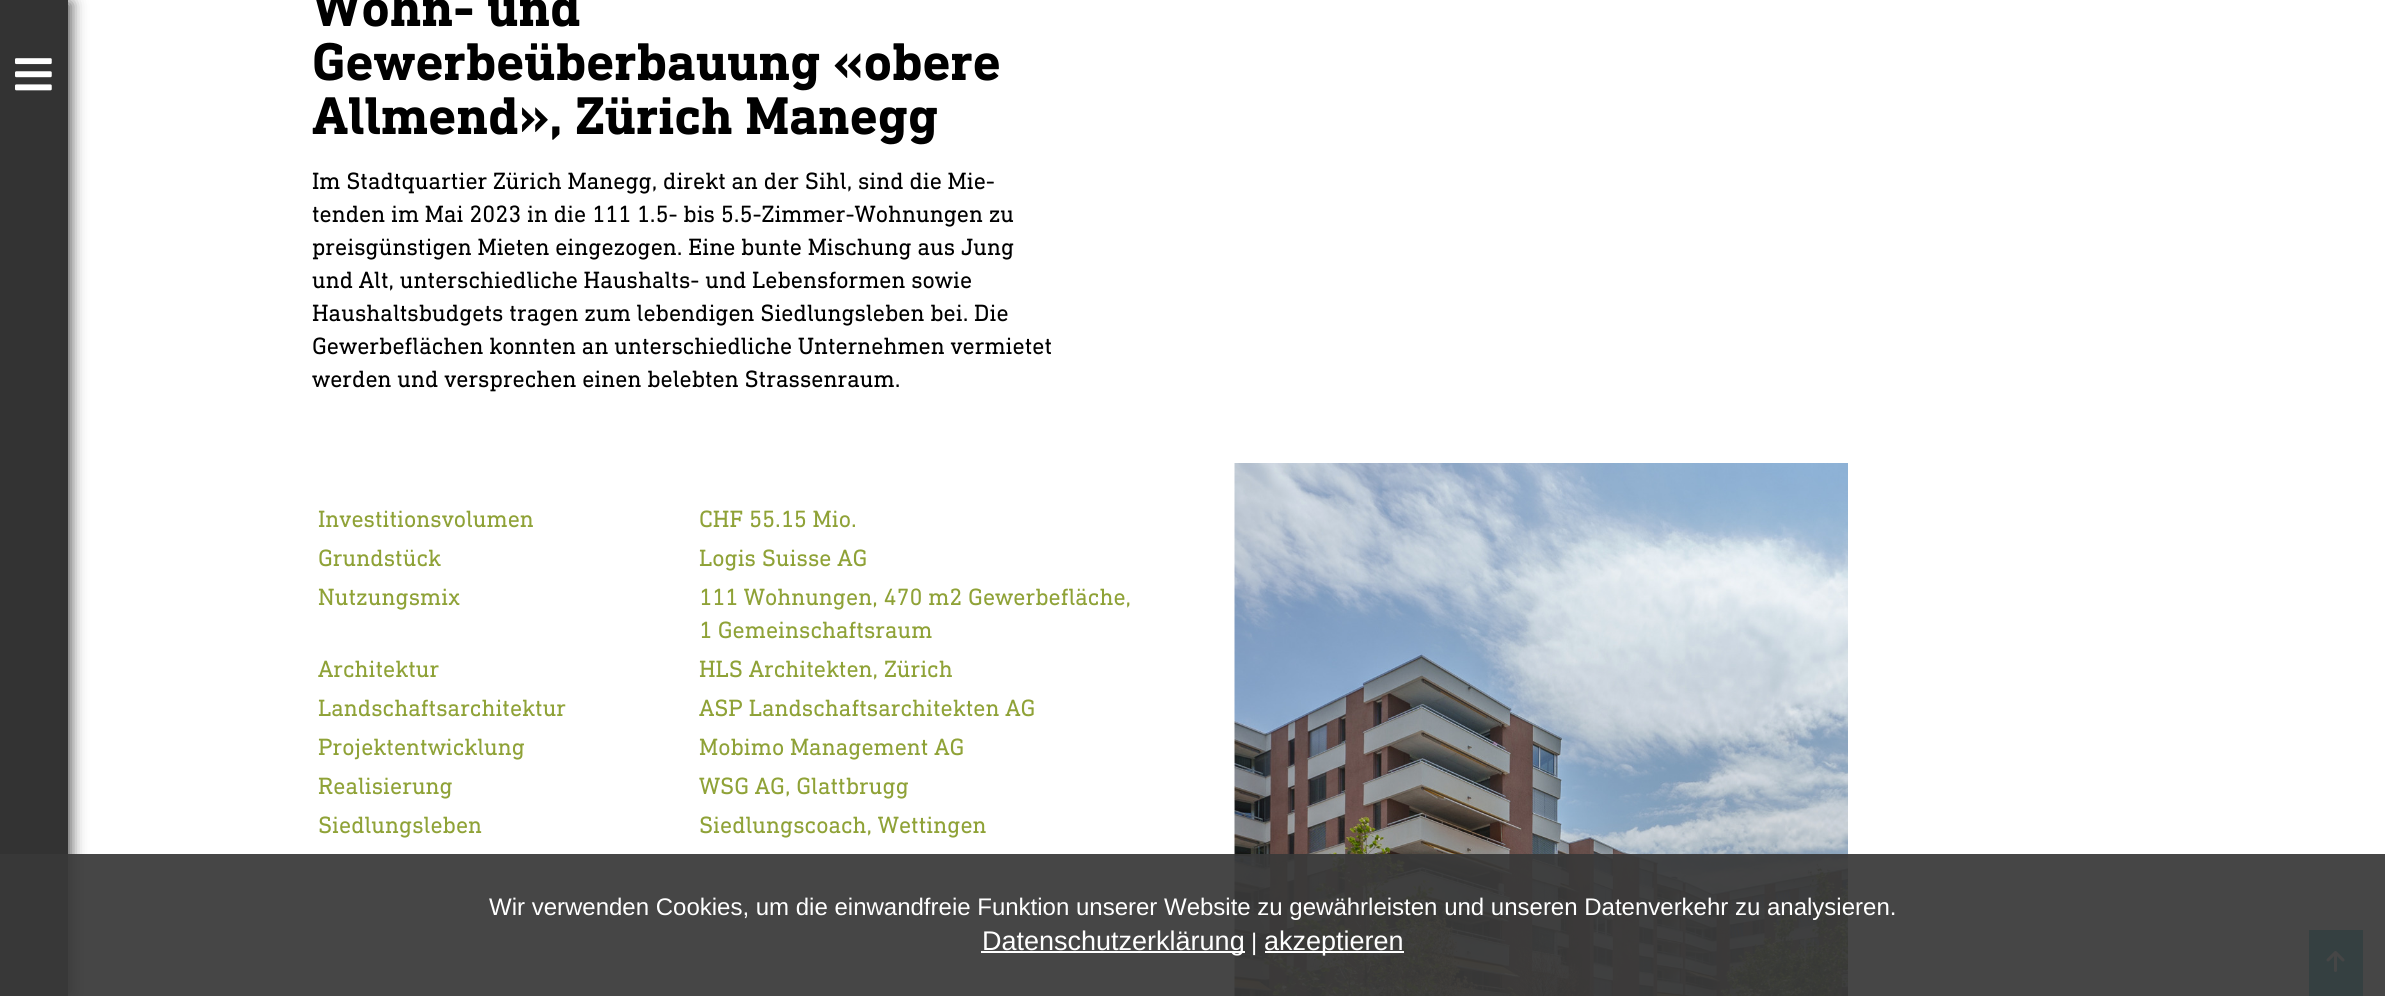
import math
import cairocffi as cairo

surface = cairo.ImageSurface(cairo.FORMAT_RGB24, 2385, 996)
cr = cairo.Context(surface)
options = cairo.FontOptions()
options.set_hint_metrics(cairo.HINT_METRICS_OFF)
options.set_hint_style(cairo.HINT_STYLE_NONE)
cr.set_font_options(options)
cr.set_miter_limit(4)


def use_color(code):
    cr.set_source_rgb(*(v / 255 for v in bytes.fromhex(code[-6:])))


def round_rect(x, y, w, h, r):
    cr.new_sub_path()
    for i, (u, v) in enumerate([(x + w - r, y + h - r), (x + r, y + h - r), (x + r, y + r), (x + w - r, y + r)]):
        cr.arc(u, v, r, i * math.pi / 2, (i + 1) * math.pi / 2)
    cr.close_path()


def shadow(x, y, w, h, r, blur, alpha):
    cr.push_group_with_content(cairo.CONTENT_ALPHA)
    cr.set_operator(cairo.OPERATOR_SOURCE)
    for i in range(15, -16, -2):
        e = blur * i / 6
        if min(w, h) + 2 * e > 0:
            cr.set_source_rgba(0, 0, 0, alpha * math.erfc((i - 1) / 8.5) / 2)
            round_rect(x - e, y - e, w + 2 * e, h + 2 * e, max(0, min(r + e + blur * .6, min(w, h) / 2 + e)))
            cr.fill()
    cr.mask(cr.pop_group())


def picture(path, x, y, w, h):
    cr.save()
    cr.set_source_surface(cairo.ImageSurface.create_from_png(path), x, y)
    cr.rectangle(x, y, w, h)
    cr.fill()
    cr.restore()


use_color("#ffffff")
cr.paint()
cr.save()
cr.set_fill_rule(cairo.FILL_RULE_EVEN_ODD)
cr.new_path()
cr.move_to(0, 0)
cr.line_to(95, 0)
cr.line_to(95, 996)
cr.line_to(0, 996)
cr.close_path()
cr.move_to(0, 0)
cr.line_to(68, 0)
cr.line_to(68, 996)
cr.line_to(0, 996)
cr.close_path()
cr.clip()
use_color("#000000")
shadow(9, 3, 62, 990, 0, 7.5, 0.7)
cr.restore()
cr.set_source_rgba(0, 0, 0, 0.8)
cr.rectangle(0, 0, 68, 996)
cr.fill()
picture("img1.png", 15, 58, 37, 33)
cr.select_font_face("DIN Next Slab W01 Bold", cairo.FONT_SLANT_NORMAL, cairo.FONT_WEIGHT_BOLD)
cr.set_font_size(54)
use_color("#000000")
cr.move_to(312, 26)
cr.show_text("Wohn- und")
cr.move_to(312, 80)
cr.show_text("Gewerbeüberbauung «obere")
cr.move_to(312, 134)
cr.show_text("Allmend», Zürich Manegg")
cr.select_font_face("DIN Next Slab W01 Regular")
cr.set_font_size(24)
cr.move_to(312, 189)
cr.show_text("Im Stadtquartier Zürich Manegg, direkt an der Sihl, sind die Mie-")
cr.move_to(312, 222)
cr.show_text("tenden im Mai 2023 in die 111 1.5- bis 5.5-Zimmer-Wohnungen zu")
cr.move_to(312, 255)
cr.show_text("preisgünstigen Mieten eingezogen. Eine bunte Mischung aus Jung")
cr.move_to(312, 288)
cr.show_text("und Alt, unterschiedliche Haushalts- und Lebensformen sowie")
cr.move_to(312, 321)
cr.show_text("Haushaltsbudgets tragen zum lebendigen Siedlungsleben bei. Die")
cr.move_to(312, 354)
cr.show_text("Gewerbeflächen konnten an unterschiedliche Unternehmen vermietet")
cr.move_to(312, 387)
cr.show_text("werden und versprechen einen belebten Strassenraum.")
use_color("#8fa237")
cr.move_to(318, 527)
cr.show_text("Investitionsvolumen")
cr.move_to(699, 527)
cr.show_text("CHF 55.15 Mio.")
cr.move_to(318, 566)
cr.show_text("Grundstück")
cr.move_to(699, 566)
cr.show_text("Logis Suisse AG")
cr.move_to(318, 605)
cr.show_text("Nutzungsmix")
cr.move_to(699, 605)
cr.show_text("111 Wohnungen, 470 m2 Gewerbefläche,")
cr.move_to(699, 638)
cr.show_text("1 Gemeinschaftsraum")
cr.move_to(318, 677)
cr.show_text("Architektur")
cr.move_to(699, 677)
cr.show_text("HLS Architekten, Zürich")
cr.move_to(318, 716)
cr.show_text("Landschaftsarchitektur")
cr.move_to(699, 716)
cr.show_text("ASP Landschaftsarchitekten AG")
cr.move_to(318, 755)
cr.show_text("Projektentwicklung")
cr.move_to(699, 755)
cr.show_text("Mobimo Management AG")
cr.move_to(318, 794)
cr.show_text("Realisierung")
cr.move_to(699, 794)
cr.show_text("WSG AG, Glattbrugg")
cr.move_to(318, 833)
cr.show_text("Siedlungsleben")
cr.move_to(699, 833)
cr.show_text("Siedlungscoach, Wettingen")
picture("img2.png", 1234, 463, 614, 533)
use_color("#00a8b8")
cr.rectangle(2309, 930, 54, 66)
cr.fill()
picture("img3.png", 2326, 951, 19, 21)
cr.set_source_rgba(0.224, 0.224, 0.224, 0.93)
cr.rectangle(0, 854, 2385, 142)
cr.fill()
cr.select_font_face("Liberation Sans")
use_color("#ffffff")
cr.move_to(489, 915)
cr.show_text("Wir verwenden Cookies, um die einwandfreie Funktion unserer Website zu gewährleisten und unseren Datenverkehr zu analysieren.")
cr.rectangle(981, 951, 264, 2)
cr.fill()
cr.set_font_size(27)
cr.move_to(982, 950)
cr.show_text("Datenschutzerklärung")
cr.set_font_size(24)
cr.move_to(1251, 950)
cr.show_text("|")
cr.rectangle(1265, 951, 139, 2)
cr.fill()
cr.set_font_size(27)
cr.move_to(1264, 950)
cr.show_text("akzeptieren")
surface.write_to_png("result.png")
